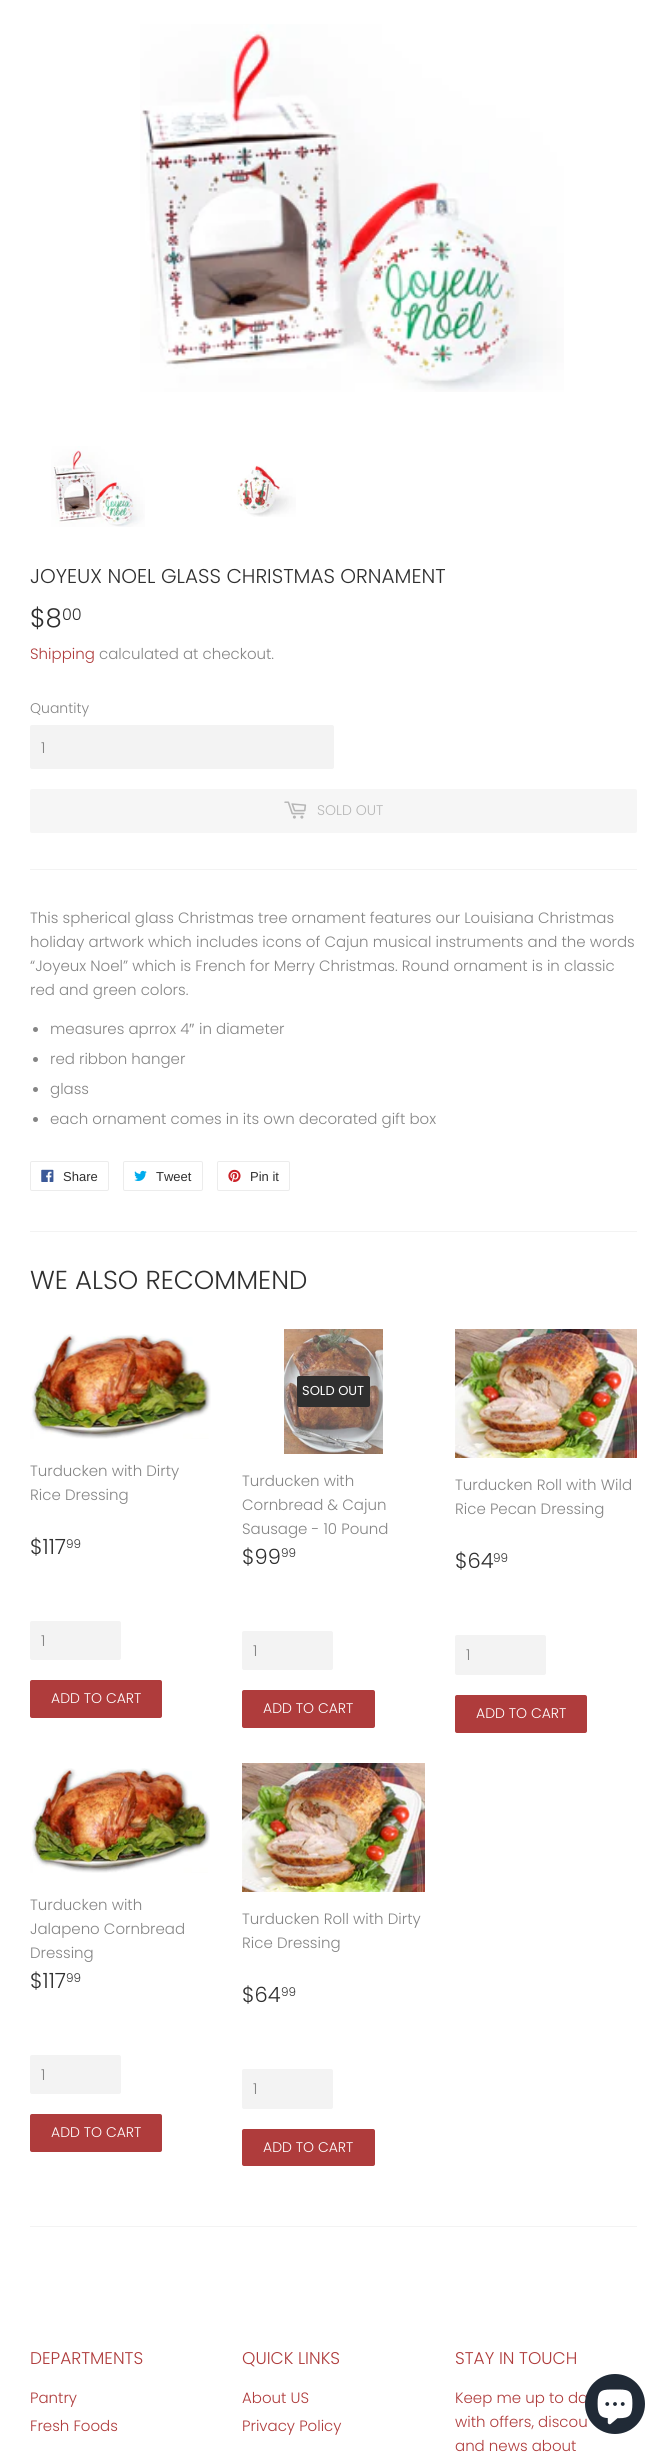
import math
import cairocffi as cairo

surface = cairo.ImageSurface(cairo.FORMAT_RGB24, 667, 2455)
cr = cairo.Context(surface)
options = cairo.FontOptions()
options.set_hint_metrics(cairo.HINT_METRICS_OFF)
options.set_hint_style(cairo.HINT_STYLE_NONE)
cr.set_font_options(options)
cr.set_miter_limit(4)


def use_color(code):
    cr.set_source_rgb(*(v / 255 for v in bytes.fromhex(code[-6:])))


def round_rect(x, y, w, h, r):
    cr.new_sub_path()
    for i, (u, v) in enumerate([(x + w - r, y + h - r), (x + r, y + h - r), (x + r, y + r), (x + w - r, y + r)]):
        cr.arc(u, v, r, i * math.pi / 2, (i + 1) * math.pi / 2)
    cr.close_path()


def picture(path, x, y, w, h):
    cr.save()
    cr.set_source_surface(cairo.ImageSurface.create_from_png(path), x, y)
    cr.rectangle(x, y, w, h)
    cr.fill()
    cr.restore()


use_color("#ffffff")
cr.paint()
picture("img1.png", 140, 24, 424, 368)
picture("img2.png", 51, 446, 94, 81)
picture("img3.png", 237, 465, 59, 52)
cr.select_font_face("Poppins Light")
cr.set_font_size(20)
use_color("#2f2f2f")
cr.move_to(30, 583)
cr.show_text("JOYEUX NOEL GLASS CHRISTMAS ORNAMENT")
cr.set_font_size(26)
cr.move_to(30, 627)
cr.show_text("$8")
cr.set_font_size(16)
cr.move_to(62, 620)
cr.show_text("00")
cr.set_font_size(15)
use_color("#af3c3c")
cr.move_to(30, 659)
cr.show_text("Shipping")
use_color("#858585")
cr.move_to(99, 659)
cr.show_text("calculated at checkout.")
cr.set_font_size(14)
cr.move_to(30, 713)
cr.show_text("Quantity")
use_color("#f3f3f3")
round_rect(30, 725, 304, 44, 2)
cr.fill()
cr.set_font_size(15)
use_color("#858585")
cr.move_to(41, 753)
cr.show_text("1")
use_color("#f6f6f6")
round_rect(30, 789, 607, 44, 2)
cr.fill()
picture("img4.png", 284, 801, 23, 18)
cr.set_font_size(14)
use_color("#b6b6b6")
cr.move_to(317, 815)
cr.show_text("SOLD OUT")
use_color("#f3f3f3")
cr.rectangle(30, 869, 607, 1)
cr.fill()
cr.set_font_size(15)
use_color("#858585")
cr.move_to(30, 923)
cr.show_text("This spherical glass Christmas tree ornament features our Louisiana Christmas")
cr.move_to(30, 947)
cr.show_text("holiday artwork which includes icons of Cajun musical instruments and the words")
cr.move_to(30, 971)
cr.show_text("“Joyeux Noel” which is French for Merry Christmas. Round ornament is in classic")
cr.move_to(30, 995)
cr.show_text("red and green colors.")
cr.move_to(50, 1034)
cr.show_text("measures aprrox 4")
cr.select_font_face("Liberation Sans")
cr.move_to(189, 1034)
cr.show_text("″")
cr.select_font_face("Poppins Light")
cr.move_to(199, 1034)
cr.show_text("in diameter")
cr.new_path()
cr.arc(35.5, 1029.5, 2.5, 0, 2 * math.pi)
cr.fill()
cr.arc(35.5, 1059.5, 2.5, 0, 2 * math.pi)
cr.fill()
cr.move_to(50, 1064)
cr.show_text("red ribbon hanger")
cr.new_path()
cr.arc(35.5, 1089.5, 2.5, 0, 2 * math.pi)
cr.fill()
cr.move_to(50, 1094)
cr.show_text("glass")
cr.new_path()
cr.arc(35.5, 1119.5, 2.5, 0, 2 * math.pi)
cr.fill()
cr.move_to(50, 1124)
cr.show_text("each ornament comes in its own decorated gift box")
round_rect(30.5, 1161.5, 78, 29, 1.5)
use_color("#ececec")
cr.set_line_width(1)
cr.stroke()
picture("img5.png", 41, 1169, 13, 13)
cr.select_font_face("Liberation Sans")
cr.set_font_size(13)
use_color("#2f2f2f")
cr.move_to(63, 1181)
cr.show_text("Share")
round_rect(123.5, 1161.5, 79, 29, 1.5)
use_color("#ececec")
cr.stroke()
picture("img6.png", 134, 1170, 13, 11)
use_color("#2f2f2f")
cr.move_to(156, 1181)
cr.show_text("Tweet")
round_rect(217.5, 1161.5, 72, 29, 1.5)
use_color("#ececec")
cr.stroke()
picture("img7.png", 228, 1169, 13, 13)
use_color("#2f2f2f")
cr.move_to(250, 1181)
cr.show_text("Pin it")
use_color("#f3f3f3")
cr.rectangle(30, 1231, 607, 1)
cr.fill()
cr.select_font_face("Poppins Light")
cr.set_font_size(26)
use_color("#2f2f2f")
cr.move_to(30, 1289)
cr.show_text("WE ALSO RECOMMEND")
picture("img8.png", 30, 1334, 181, 105)
cr.set_font_size(15)
use_color("#858585")
cr.move_to(30, 1476)
cr.show_text("Turducken with Dirty")
cr.move_to(30, 1500)
cr.show_text("Rice Dressing")
cr.set_font_size(21)
use_color("#2f2f2f")
cr.move_to(30, 1554)
cr.show_text("$117")
cr.set_font_size(12)
cr.move_to(66, 1548)
cr.show_text("99")
use_color("#f3f3f3")
round_rect(30, 1621, 91, 39, 2)
cr.fill()
cr.set_font_size(15)
use_color("#858585")
cr.move_to(41, 1646)
cr.show_text("1")
use_color("#af3c3c")
round_rect(30, 1680, 132, 38, 2)
cr.fill()
cr.set_font_size(14)
use_color("#ffffff")
cr.move_to(51, 1703)
cr.show_text("ADD TO CART")
picture("img9.png", 284, 1329, 99, 125)
use_color("#2f2f2f")
round_rect(297, 1376, 73, 31, 2)
cr.fill()
cr.select_font_face("Poppins")
cr.set_font_size(13)
use_color("#ffffff")
cr.move_to(302, 1395)
cr.show_text("SOLD OUT")
cr.select_font_face("Poppins Light")
cr.set_font_size(15)
use_color("#858585")
cr.move_to(242, 1486)
cr.show_text("Turducken with")
cr.move_to(242, 1510)
cr.show_text("Cornbread & Cajun")
cr.move_to(242, 1534)
cr.show_text("Sausage - 10 Pound")
cr.set_font_size(21)
use_color("#2f2f2f")
cr.move_to(242, 1564)
cr.show_text("$99")
cr.set_font_size(12)
cr.move_to(281, 1557)
cr.show_text("99")
use_color("#f3f3f3")
round_rect(242, 1631, 91, 39, 2)
cr.fill()
cr.set_font_size(15)
use_color("#858585")
cr.move_to(253, 1656)
cr.show_text("1")
use_color("#af3c3c")
round_rect(242, 1690, 133, 38, 2)
cr.fill()
cr.set_font_size(14)
use_color("#ffffff")
cr.move_to(263, 1713)
cr.show_text("ADD TO CART")
picture("img10.png", 455, 1329, 182, 129)
cr.set_font_size(15)
use_color("#858585")
cr.move_to(455, 1490)
cr.show_text("Turducken Roll with Wild")
cr.move_to(455, 1514)
cr.show_text("Rice Pecan Dressing")
cr.set_font_size(21)
use_color("#2f2f2f")
cr.move_to(455, 1568)
cr.show_text("$64")
cr.set_font_size(12)
cr.move_to(493, 1562)
cr.show_text("99")
use_color("#f3f3f3")
round_rect(455, 1635, 91, 40, 2)
cr.fill()
cr.set_font_size(15)
use_color("#858585")
cr.move_to(466, 1660)
cr.show_text("1")
use_color("#af3c3c")
round_rect(455, 1695, 132, 38, 2)
cr.fill()
cr.set_font_size(14)
use_color("#ffffff")
cr.move_to(476, 1718)
cr.show_text("ADD TO CART")
picture("img11.png", 30, 1768, 180, 105)
cr.set_font_size(15)
use_color("#858585")
cr.move_to(30, 1910)
cr.show_text("Turducken with")
cr.move_to(30, 1934)
cr.show_text("Jalapeno Cornbread")
cr.move_to(30, 1958)
cr.show_text("Dressing")
cr.set_font_size(21)
use_color("#2f2f2f")
cr.move_to(30, 1988)
cr.show_text("$117")
cr.set_font_size(12)
cr.move_to(66, 1982)
cr.show_text("99")
use_color("#f3f3f3")
round_rect(30, 2055, 91, 39, 2)
cr.fill()
cr.set_font_size(15)
use_color("#858585")
cr.move_to(41, 2080)
cr.show_text("1")
use_color("#af3c3c")
round_rect(30, 2114, 132, 38, 2)
cr.fill()
cr.set_font_size(14)
use_color("#ffffff")
cr.move_to(51, 2137)
cr.show_text("ADD TO CART")
picture("img12.png", 242, 1763, 183, 129)
cr.set_font_size(15)
use_color("#858585")
cr.move_to(242, 1924)
cr.show_text("Turducken Roll with Dirty")
cr.move_to(242, 1948)
cr.show_text("Rice Dressing")
cr.set_font_size(21)
use_color("#2f2f2f")
cr.move_to(242, 2002)
cr.show_text("$64")
cr.set_font_size(12)
cr.move_to(281, 1996)
cr.show_text("99")
use_color("#f3f3f3")
round_rect(242, 2069, 91, 40, 2)
cr.fill()
cr.set_font_size(15)
use_color("#858585")
cr.move_to(253, 2094)
cr.show_text("1")
use_color("#af3c3c")
round_rect(242, 2129, 133, 37, 2)
cr.fill()
cr.set_font_size(14)
use_color("#ffffff")
cr.move_to(263, 2152)
cr.show_text("ADD TO CART")
use_color("#f3f3f3")
cr.rectangle(30, 2226, 607, 1)
cr.fill()
cr.set_font_size(17)
use_color("#af3c3c")
cr.move_to(30, 2364)
cr.show_text("DEPARTMENTS")
cr.set_font_size(15)
cr.move_to(30, 2403)
cr.show_text("Pantry")
cr.move_to(30, 2431)
cr.show_text("Fresh Foods")
cr.set_font_size(17)
cr.move_to(242, 2364)
cr.show_text("QUICK LINKS")
cr.set_font_size(15)
cr.move_to(242, 2403)
cr.show_text("About US")
cr.move_to(242, 2431)
cr.show_text("Privacy Policy")
cr.set_font_size(17)
cr.move_to(455, 2364)
cr.show_text("STAY IN TOUCH")
cr.set_font_size(15)
cr.move_to(455, 2403)
cr.show_text("Keep me up to da")
cr.move_to(455, 2427)
cr.show_text("with offers, discou")
cr.move_to(455, 2451)
cr.show_text("and news about")
use_color("#202a36")
cr.new_path()
cr.arc(615, 2404, 30, 0, 2 * math.pi)
cr.fill()
picture("img13.png", 597, 2389, 36, 36)
surface.write_to_png("result.png")
